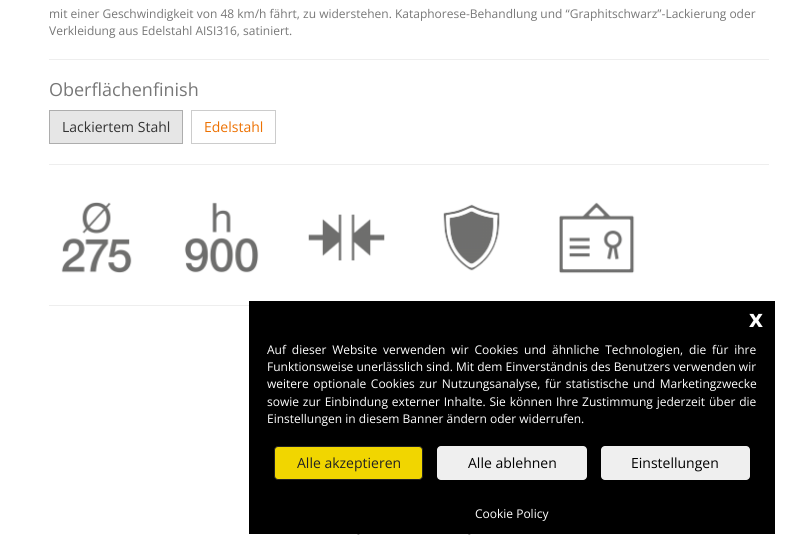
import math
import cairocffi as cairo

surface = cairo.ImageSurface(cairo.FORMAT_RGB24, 787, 546)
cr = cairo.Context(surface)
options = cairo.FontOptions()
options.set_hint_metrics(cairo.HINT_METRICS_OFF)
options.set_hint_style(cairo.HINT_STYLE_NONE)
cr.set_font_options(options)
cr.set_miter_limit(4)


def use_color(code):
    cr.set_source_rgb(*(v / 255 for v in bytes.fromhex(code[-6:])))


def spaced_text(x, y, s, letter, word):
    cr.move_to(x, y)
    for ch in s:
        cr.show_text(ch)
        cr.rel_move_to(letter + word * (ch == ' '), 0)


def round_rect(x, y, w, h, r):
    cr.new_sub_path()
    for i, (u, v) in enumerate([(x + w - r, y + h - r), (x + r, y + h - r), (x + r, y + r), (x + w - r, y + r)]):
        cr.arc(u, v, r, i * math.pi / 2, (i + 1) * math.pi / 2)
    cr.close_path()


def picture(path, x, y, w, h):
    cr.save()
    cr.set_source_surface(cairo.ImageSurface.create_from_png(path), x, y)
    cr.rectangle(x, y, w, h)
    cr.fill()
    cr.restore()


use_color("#ffffff")
cr.paint()
cr.select_font_face("Open Sans")
cr.set_font_size(12)
use_color("#777777")
cr.move_to(49, 18)
cr.show_text("mit einer Geschwindigkeit von 48 km/h fährt, zu widerstehen. Kataphorese-Behandlung und “Graphitschwarz”-Lackierung oder")
cr.move_to(49, 35)
cr.show_text("Verkleidung aus Edelstahl AISI316, satiniert.")
use_color("#eeeeee")
cr.rectangle(49, 59, 720, 1)
cr.fill()
cr.set_font_size(18)
use_color("#777777")
cr.move_to(49, 96)
cr.show_text("Oberflächenfinish")
use_color("#e6e6e6")
cr.rectangle(49.5, 110.5, 133, 33)
cr.fill_preserve()
use_color("#adadad")
cr.set_line_width(1)
cr.stroke()
cr.set_font_size(14)
use_color("#333333")
cr.move_to(62, 132)
cr.show_text("Lackiertem Stahl")
cr.rectangle(191.5, 110.5, 84, 33)
use_color("#cccccc")
cr.stroke()
use_color("#ed7102")
cr.move_to(204, 132)
cr.show_text("Edelstahl")
use_color("#eeeeee")
cr.rectangle(49, 164, 720, 1)
cr.fill()
picture("img1.png", 61, 202, 71, 71)
picture("img2.png", 184, 202, 75, 71)
picture("img3.png", 308, 214, 77, 47)
picture("img4.png", 443, 204, 57, 67)
picture("img5.png", 559, 202, 76, 72)
cr.rectangle(49, 305, 200, 1)
cr.fill()
picture("img6.png", 357, 534, 114, 1)
use_color("#000000")
cr.rectangle(249, 301, 526, 233)
cr.fill()
cr.select_font_face("Open Sans", cairo.FONT_SLANT_NORMAL, cairo.FONT_WEIGHT_BOLD)
cr.set_font_size(24)
use_color("#ffffff")
cr.move_to(749, 327)
cr.show_text("x")
cr.select_font_face("Open Sans")
cr.set_font_size(12)
spaced_text(267, 354, "Auf dieser Website verwenden wir Cookies und ähnliche Technologien, die für ihre", 0, 2.75)
cr.move_to(267, 371)
cr.show_text("Funktionsweise unerlässlich sind. Mit dem Einverständnis des Benutzers verwenden wir")
spaced_text(267, 388, "weitere optionale Cookies zur Nutzungsanalyse, für statistische und Marketingzwecke", 0, 1.5)
spaced_text(267, 406, "sowie zur Einbindung externer Inhalte. Sie können Ihre Zustimmung jederzeit über die", 0, 0.75)
cr.move_to(267, 423)
cr.show_text("Einstellungen in diesem Banner ändern oder widerrufen.")
use_color("#f1d600")
round_rect(274.5, 446.5, 148, 33, 3.5)
cr.fill_preserve()
use_color("#222222")
cr.stroke()
cr.set_font_size(14)
cr.move_to(297, 468)
cr.show_text("Alle akzeptieren")
use_color("#efefef")
round_rect(437, 446, 150, 34, 4)
cr.fill()
use_color("#000000")
cr.move_to(468, 468)
cr.show_text("Alle ablehnen")
use_color("#efefef")
round_rect(601, 446, 149, 34, 4)
cr.fill()
use_color("#000000")
cr.move_to(631, 468)
cr.show_text("Einstellungen")
cr.set_font_size(12)
use_color("#ffffff")
cr.move_to(475, 518)
cr.show_text("Cookie Policy")
surface.write_to_png("result.png")
